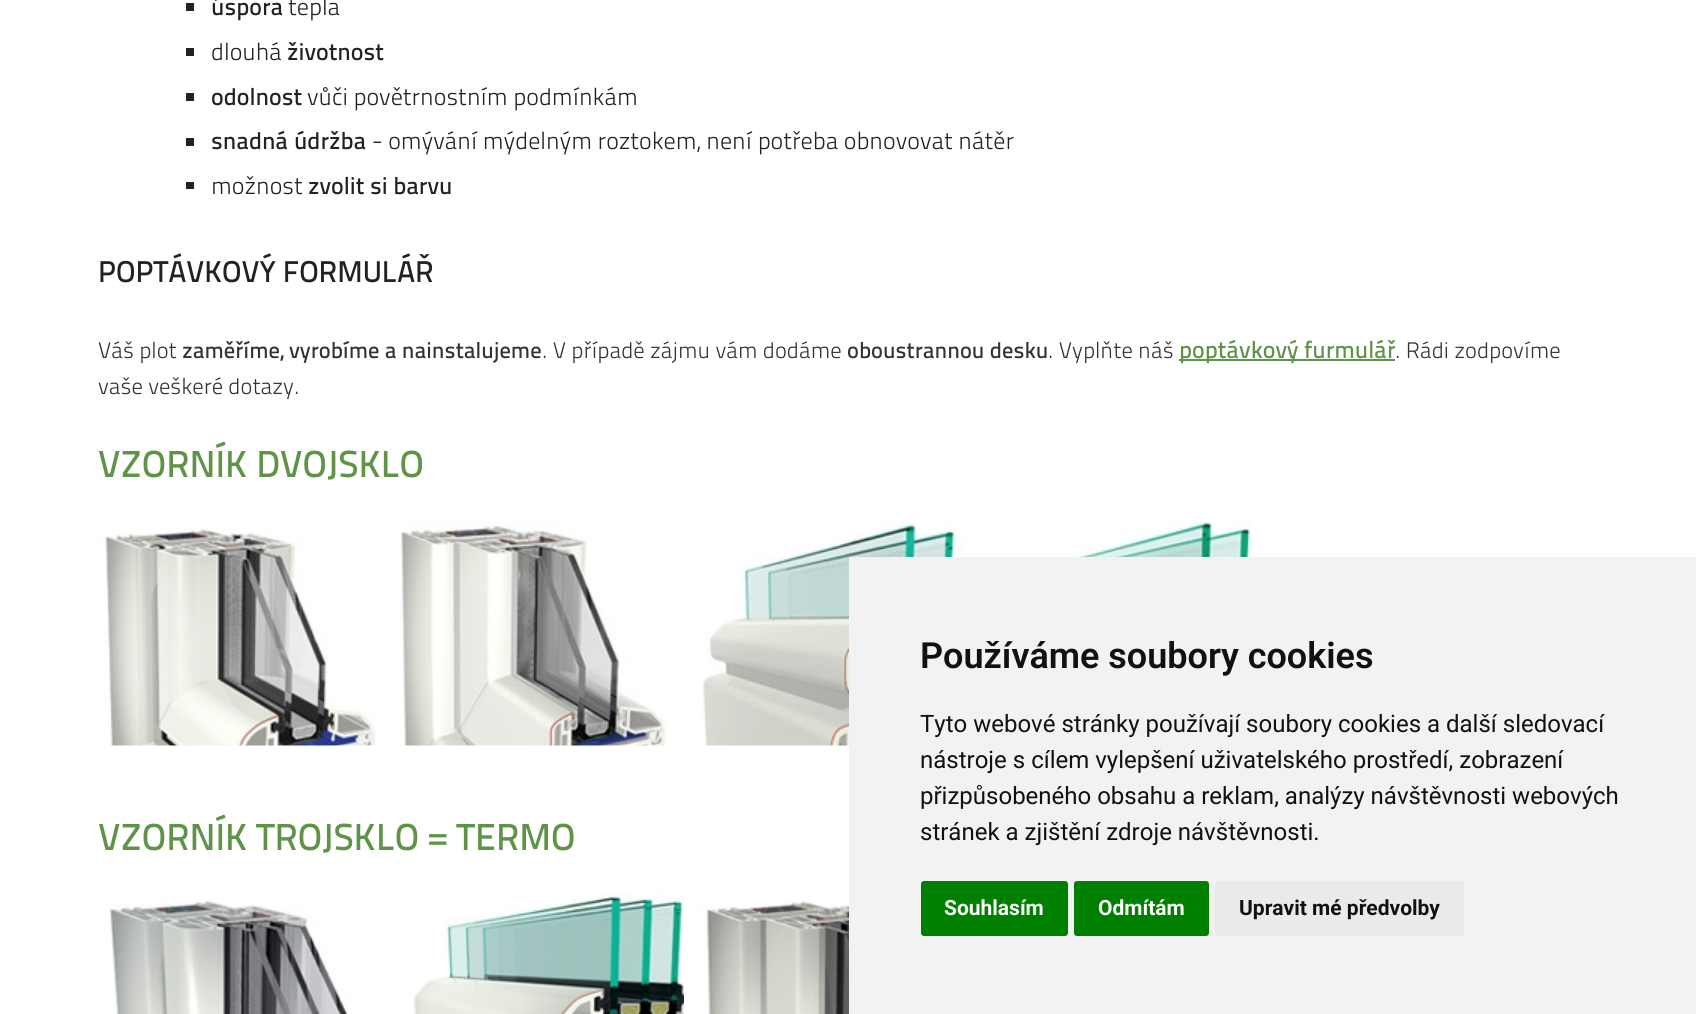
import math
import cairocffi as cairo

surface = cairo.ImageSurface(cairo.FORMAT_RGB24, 1696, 1014)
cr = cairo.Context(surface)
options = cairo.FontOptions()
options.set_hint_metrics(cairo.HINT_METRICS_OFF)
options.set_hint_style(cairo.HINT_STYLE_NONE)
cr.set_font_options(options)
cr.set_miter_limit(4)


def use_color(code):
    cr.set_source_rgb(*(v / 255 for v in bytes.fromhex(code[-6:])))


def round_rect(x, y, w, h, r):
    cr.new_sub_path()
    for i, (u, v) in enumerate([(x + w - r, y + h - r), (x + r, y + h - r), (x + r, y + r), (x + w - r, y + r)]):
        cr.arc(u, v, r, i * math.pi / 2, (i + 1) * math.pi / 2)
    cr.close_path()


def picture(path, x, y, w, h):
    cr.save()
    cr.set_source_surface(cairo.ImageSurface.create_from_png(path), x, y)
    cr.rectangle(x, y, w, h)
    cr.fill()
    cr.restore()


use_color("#ffffff")
cr.paint()
use_color("#222222")
cr.rectangle(186, 3, 8, 8)
cr.fill()
cr.select_font_face("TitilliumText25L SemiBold")
cr.set_font_size(24)
cr.move_to(211, 15)
cr.show_text("úspora")
cr.select_font_face("TitilliumText25L Light")
cr.move_to(288, 15)
cr.show_text("tepla")
cr.rectangle(186, 48, 8, 8)
cr.fill()
cr.move_to(211, 60)
cr.show_text("dlouhá")
cr.select_font_face("TitilliumText25L SemiBold")
cr.move_to(287, 60)
cr.show_text("životnost")
cr.rectangle(186, 93, 8, 8)
cr.fill()
cr.move_to(211, 105)
cr.show_text("odolnost")
cr.select_font_face("TitilliumText25L Light")
cr.move_to(307, 105)
cr.show_text("vůči povětrnostním podmínkám")
cr.rectangle(186, 138, 8, 8)
cr.fill()
cr.select_font_face("TitilliumText25L SemiBold")
cr.move_to(211, 149)
cr.show_text("snadná údržba")
cr.select_font_face("TitilliumText25L Light")
cr.move_to(372, 149)
cr.show_text("- omývání mýdelným roztokem, není potřeba obnovovat nátěr")
cr.rectangle(186, 182, 8, 7)
cr.fill()
cr.move_to(211, 194)
cr.show_text("možnost")
cr.select_font_face("TitilliumText25L SemiBold")
cr.move_to(308, 194)
cr.show_text("zvolit si barvu")
cr.set_font_size(30)
cr.move_to(98, 282)
cr.show_text("POPTÁVKOVÝ FORMULÁŘ")
cr.select_font_face("TitilliumText25L Light")
cr.set_font_size(22.5)
use_color("#333333")
cr.move_to(98, 358)
cr.show_text("Váš plot")
cr.select_font_face("TitilliumText25L SemiBold")
cr.move_to(182, 358)
cr.show_text("zaměříme, vyrobíme a nainstalujeme")
cr.select_font_face("TitilliumText25L Light")
cr.move_to(542, 358)
cr.show_text(". V případě zájmu vám dodáme")
cr.select_font_face("TitilliumText25L SemiBold")
cr.move_to(847, 358)
cr.show_text("oboustrannou desku")
cr.select_font_face("TitilliumText25L Light")
cr.move_to(1048, 358)
cr.show_text(". Vyplňte náš")
use_color("#5f9448")
cr.rectangle(1179, 359, 216, 2)
cr.fill()
cr.select_font_face("TitilliumText25L SemiBold")
cr.set_font_size(24)
cr.move_to(1179, 358)
cr.show_text("poptávkový furmulář")
cr.select_font_face("TitilliumText25L Light")
cr.set_font_size(22.5)
use_color("#333333")
cr.move_to(1395, 358)
cr.show_text(". Rádi zodpovíme")
cr.move_to(98, 394)
cr.show_text("vaše veškeré dotazy.")
cr.select_font_face("TitilliumText25L SemiBold")
cr.set_font_size(37.5)
use_color("#5f9448")
cr.move_to(98, 477)
cr.show_text("VZORNÍK DVOJSKLO")
picture("img1.png", 99, 527, 277, 219)
picture("img2.png", 400, 521, 267, 225)
picture("img3.png", 699, 522, 285, 224)
picture("img4.png", 1001, 521, 283, 36)
cr.move_to(98, 850)
cr.show_text("VZORNÍK TROJSKLO = TERMO")
picture("img5.png", 109, 899, 240, 115)
picture("img6.png", 413, 893, 271, 121)
picture("img7.png", 699, 901, 150, 113)
use_color("#f2f2f2")
cr.rectangle(849, 557, 847, 457)
cr.fill()
cr.select_font_face("Roboto SemiBold")
cr.set_font_size(36)
use_color("#111111")
cr.move_to(920, 668)
cr.show_text("Používáme soubory cookies")
cr.select_font_face("Roboto")
cr.set_font_size(24)
cr.move_to(920, 732)
cr.show_text("Tyto webové stránky používají soubory cookies a další sledovací")
cr.move_to(920, 768)
cr.show_text("nástroje s cílem vylepšení uživatelského prostředí, zobrazení")
cr.move_to(920, 804)
cr.show_text("přizpůsobeného obsahu a reklam, analýzy návštěvnosti webových")
cr.move_to(920, 840)
cr.show_text("stránek a zjištění zdroje návštěvnosti.")
use_color("#008000")
round_rect(921, 881, 147, 55, 3)
cr.fill()
cr.select_font_face("Roboto", cairo.FONT_SLANT_NORMAL, cairo.FONT_WEIGHT_BOLD)
cr.set_font_size(21)
use_color("#ffffff")
cr.move_to(944, 915)
cr.show_text("Souhlasím")
use_color("#008000")
round_rect(1074, 881, 135, 55, 3)
cr.fill()
use_color("#ffffff")
cr.move_to(1098, 915)
cr.show_text("Odmítám")
use_color("#eaeaea")
round_rect(1215, 881, 249, 55, 3)
cr.fill()
use_color("#111111")
cr.move_to(1239, 915)
cr.show_text("Upravit mé předvolby")
surface.write_to_png("result.png")
